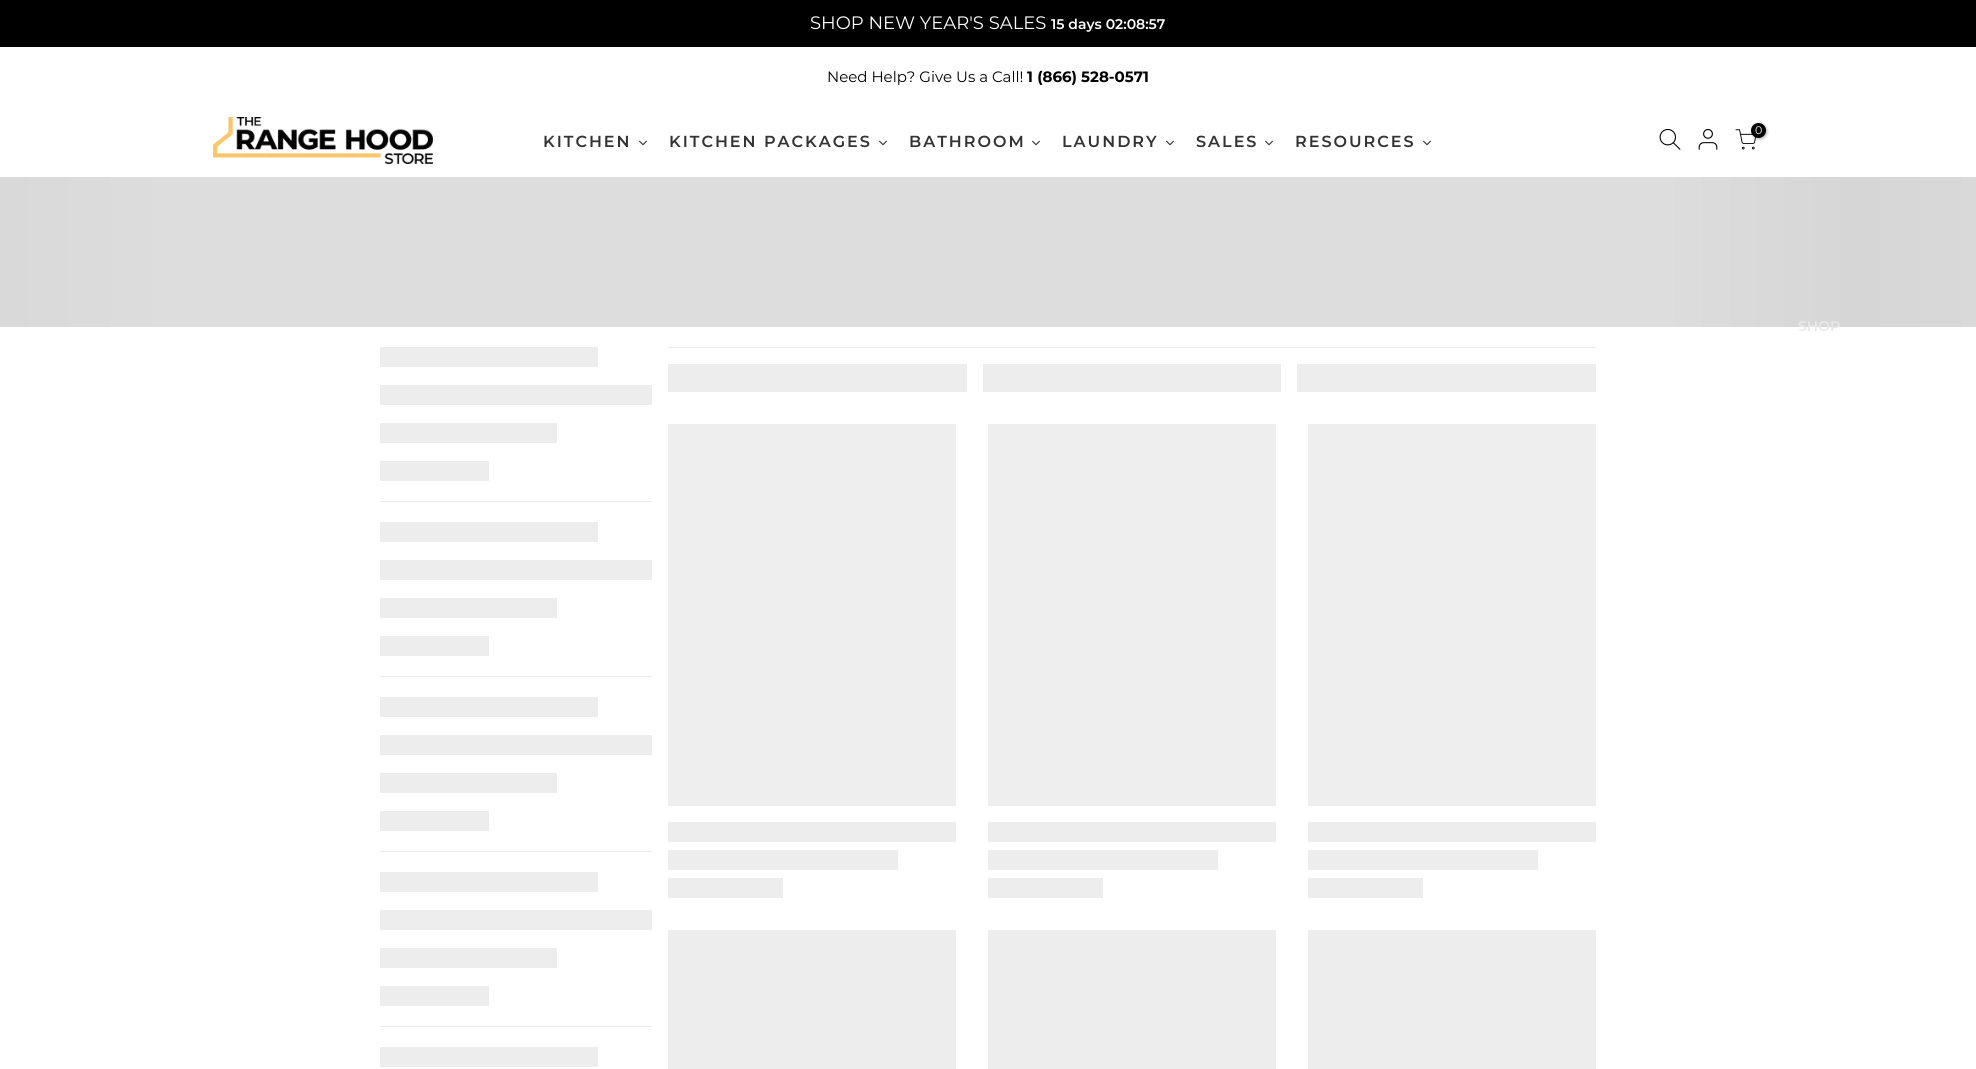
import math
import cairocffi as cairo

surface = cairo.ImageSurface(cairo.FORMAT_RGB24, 1976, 1069)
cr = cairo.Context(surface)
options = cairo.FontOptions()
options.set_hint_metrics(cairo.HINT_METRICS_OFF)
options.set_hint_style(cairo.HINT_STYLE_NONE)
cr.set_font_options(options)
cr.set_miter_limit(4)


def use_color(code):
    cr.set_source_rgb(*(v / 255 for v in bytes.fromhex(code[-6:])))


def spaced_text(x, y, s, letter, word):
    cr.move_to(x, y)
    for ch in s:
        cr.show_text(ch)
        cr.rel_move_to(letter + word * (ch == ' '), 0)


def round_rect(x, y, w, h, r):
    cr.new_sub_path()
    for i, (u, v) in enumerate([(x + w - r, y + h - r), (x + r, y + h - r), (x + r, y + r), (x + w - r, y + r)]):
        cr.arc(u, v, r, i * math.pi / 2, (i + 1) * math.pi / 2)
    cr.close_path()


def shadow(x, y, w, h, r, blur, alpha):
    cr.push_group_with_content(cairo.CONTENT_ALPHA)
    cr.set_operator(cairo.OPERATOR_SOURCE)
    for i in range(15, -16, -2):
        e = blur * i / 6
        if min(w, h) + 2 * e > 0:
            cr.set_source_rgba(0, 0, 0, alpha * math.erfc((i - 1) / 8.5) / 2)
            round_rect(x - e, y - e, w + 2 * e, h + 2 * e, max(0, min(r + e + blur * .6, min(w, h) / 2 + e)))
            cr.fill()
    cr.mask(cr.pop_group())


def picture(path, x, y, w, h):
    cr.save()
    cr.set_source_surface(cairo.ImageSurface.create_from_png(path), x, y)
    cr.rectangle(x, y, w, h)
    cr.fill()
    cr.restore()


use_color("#ffffff")
cr.paint()
use_color("#000000")
cr.rectangle(0, 0, 1976, 47)
cr.fill()
cr.select_font_face("Montserrat")
cr.set_font_size(18)
use_color("#ffffff")
cr.move_to(810, 29)
cr.show_text("SHOP NEW YEAR'S SALES")
cr.select_font_face("Montserrat SemiBold")
cr.set_font_size(14)
cr.move_to(1051, 29)
cr.show_text("15 days 02:08:57")
cr.select_font_face("Montserrat")
cr.set_font_size(15)
use_color("#000000")
cr.move_to(827, 82)
cr.show_text("Need Help? Give Us a Call!")
cr.select_font_face("Montserrat", cairo.FONT_SLANT_NORMAL, cairo.FONT_WEIGHT_BOLD)
cr.move_to(1027, 82)
cr.show_text("1 (866) 528-0571")
picture("img1.png", 213, 117, 220, 47)
picture("img2.png", 1659, 128, 22, 22)
picture("img3.png", 1698, 128, 20, 22)
picture("img4.png", 1735, 129, 21, 21)
use_color("#000000")
shadow(1752, 124, 15, 15, 7.5, 1.5, 0.3)
use_color("#000000")
cr.arc(1758.5, 130.5, 7.5, 0, 2 * math.pi)
cr.fill()
cr.select_font_face("Montserrat")
cr.set_font_size(11)
use_color("#ffffff")
cr.move_to(1755, 134)
cr.show_text("0")
cr.select_font_face("Montserrat SemiBold")
cr.set_font_size(16)
use_color("#333333")
spaced_text(543, 147, "KITCHEN", 2, 0)
picture("img5.png", 639, 140, 8, 6)
spaced_text(669, 147, "KITCHEN PACKAGES", 2, 0)
picture("img5.png", 879, 140, 8, 6)
spaced_text(909, 147, "BATHROOM", 2, 0)
picture("img5.png", 1032, 140, 8, 6)
spaced_text(1062, 147, "LAUNDRY", 2, 0)
picture("img5.png", 1166, 140, 8, 6)
spaced_text(1196, 147, "SALES", 2, 0)
picture("img5.png", 1265, 140, 8, 6)
spaced_text(1295, 147, "RESOURCES", 2, 0)
picture("img5.png", 1423, 140, 8, 6)
gradient = cairo.LinearGradient(-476, 177, 1500, 177)
gradient.add_color_stop_rgba(0.08, 0.867, 0.867, 0.867, 1)
gradient.add_color_stop_rgba(0.18, 0.839, 0.839, 0.839, 1)
gradient.add_color_stop_rgba(0.33, 0.867, 0.867, 0.867, 1)
cr.set_source(gradient)
cr.rectangle(0, 177, 1500, 150)
cr.fill()
gradient = cairo.LinearGradient(1500, 177, 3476, 177)
gradient.add_color_stop_rgba(0.08, 0.867, 0.867, 0.867, 1)
gradient.add_color_stop_rgba(0.18, 0.839, 0.839, 0.839, 1)
gradient.add_color_stop_rgba(0.33, 0.867, 0.867, 0.867, 1)
cr.set_source(gradient)
cr.rectangle(1500, 177, 476, 150)
cr.fill()
use_color("#ebebeb")
cr.rectangle(380, 501, 272, 1)
cr.fill()
use_color("#ededed")
cr.rectangle(380, 347, 218, 20)
cr.fill()
cr.rectangle(380, 385, 272, 20)
cr.fill()
cr.rectangle(380, 423, 177, 20)
cr.fill()
cr.rectangle(380, 461, 109, 20)
cr.fill()
use_color("#ebebeb")
cr.rectangle(380, 676, 272, 1)
cr.fill()
use_color("#ededed")
cr.rectangle(380, 522, 218, 20)
cr.fill()
cr.rectangle(380, 560, 272, 20)
cr.fill()
cr.rectangle(380, 598, 177, 20)
cr.fill()
cr.rectangle(380, 636, 109, 20)
cr.fill()
use_color("#ebebeb")
cr.rectangle(380, 851, 272, 1)
cr.fill()
use_color("#ededed")
cr.rectangle(380, 697, 218, 20)
cr.fill()
cr.rectangle(380, 735, 272, 20)
cr.fill()
cr.rectangle(380, 773, 177, 20)
cr.fill()
cr.rectangle(380, 811, 109, 20)
cr.fill()
use_color("#ebebeb")
cr.rectangle(380, 1026, 272, 1)
cr.fill()
use_color("#ededed")
cr.rectangle(380, 872, 218, 20)
cr.fill()
cr.rectangle(380, 910, 272, 20)
cr.fill()
cr.rectangle(380, 948, 177, 20)
cr.fill()
cr.rectangle(380, 986, 109, 20)
cr.fill()
cr.rectangle(380, 1047, 218, 20)
cr.fill()
use_color("#ebebeb")
cr.rectangle(668, 347, 928, 1)
cr.fill()
use_color("#ededed")
cr.rectangle(668, 364, 299, 28)
cr.fill()
cr.rectangle(983, 364, 298, 28)
cr.fill()
cr.rectangle(1297, 364, 299, 28)
cr.fill()
use_color("#eeeeee")
cr.rectangle(668, 424, 288, 382)
cr.fill()
use_color("#ededed")
cr.rectangle(668, 822, 288, 20)
cr.fill()
cr.rectangle(668, 850, 230, 20)
cr.fill()
cr.rectangle(668, 878, 115, 20)
cr.fill()
use_color("#eeeeee")
cr.rectangle(988, 424, 288, 382)
cr.fill()
use_color("#ededed")
cr.rectangle(988, 822, 288, 20)
cr.fill()
cr.rectangle(988, 850, 230, 20)
cr.fill()
cr.rectangle(988, 878, 115, 20)
cr.fill()
use_color("#eeeeee")
cr.rectangle(1308, 424, 288, 382)
cr.fill()
use_color("#ededed")
cr.rectangle(1308, 822, 288, 20)
cr.fill()
cr.rectangle(1308, 850, 230, 20)
cr.fill()
cr.rectangle(1308, 878, 115, 20)
cr.fill()
cr.rectangle(668, 930, 288, 139)
cr.fill()
cr.rectangle(988, 930, 288, 139)
cr.fill()
cr.rectangle(1308, 930, 288, 139)
cr.fill()
cr.set_font_size(14)
use_color("#e8e8e8")
cr.move_to(1798, 331)
cr.show_text("SHOP")
surface.write_to_png("result.png")
